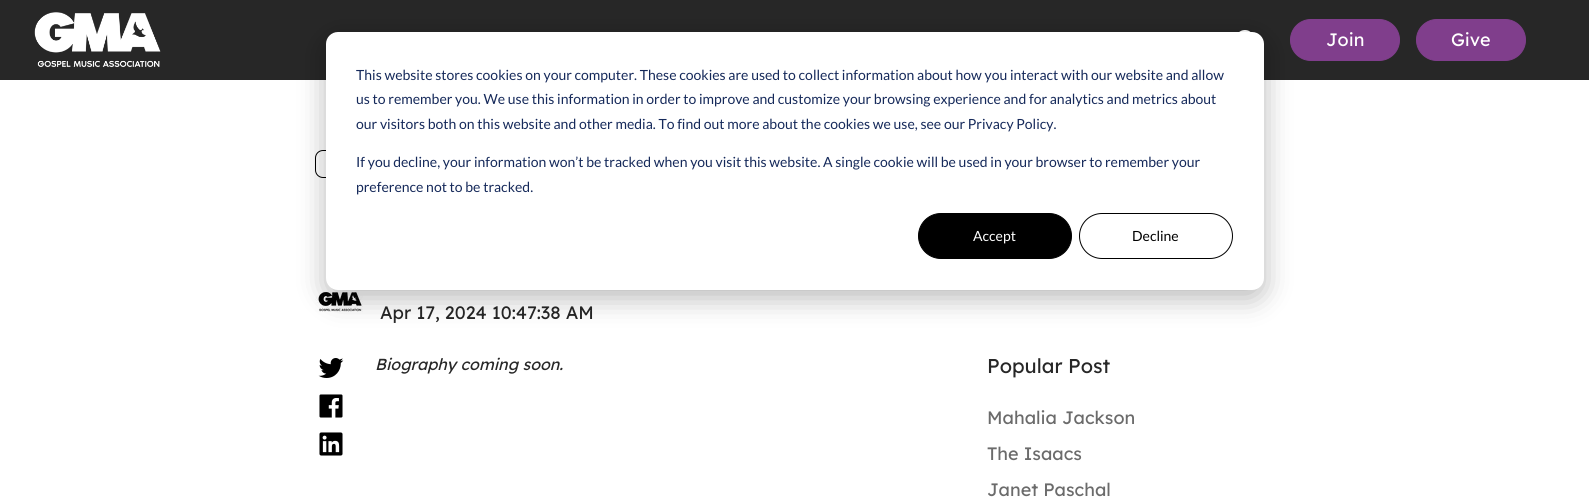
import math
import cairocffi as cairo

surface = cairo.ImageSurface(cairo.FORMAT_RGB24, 1589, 500)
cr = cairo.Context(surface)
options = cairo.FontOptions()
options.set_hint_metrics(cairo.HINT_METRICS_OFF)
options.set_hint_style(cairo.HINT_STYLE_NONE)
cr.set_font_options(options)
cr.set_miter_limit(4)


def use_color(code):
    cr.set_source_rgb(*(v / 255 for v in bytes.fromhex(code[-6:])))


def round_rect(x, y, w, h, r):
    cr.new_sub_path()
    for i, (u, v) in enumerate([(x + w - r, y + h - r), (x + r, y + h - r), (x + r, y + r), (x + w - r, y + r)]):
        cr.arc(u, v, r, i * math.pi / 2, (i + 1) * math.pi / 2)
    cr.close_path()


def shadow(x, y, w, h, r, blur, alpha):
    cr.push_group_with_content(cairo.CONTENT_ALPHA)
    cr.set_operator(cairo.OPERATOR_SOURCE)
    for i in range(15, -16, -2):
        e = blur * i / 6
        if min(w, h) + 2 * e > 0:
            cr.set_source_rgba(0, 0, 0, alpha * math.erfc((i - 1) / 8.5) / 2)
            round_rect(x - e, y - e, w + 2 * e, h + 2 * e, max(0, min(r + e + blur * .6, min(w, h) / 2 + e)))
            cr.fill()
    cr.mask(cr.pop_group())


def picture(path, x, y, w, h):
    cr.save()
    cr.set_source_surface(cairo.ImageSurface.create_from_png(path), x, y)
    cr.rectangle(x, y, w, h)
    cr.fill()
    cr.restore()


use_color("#ffffff")
cr.paint()
use_color("#272727")
cr.rectangle(0, 0, 1589, 80)
cr.fill()
picture("img1.png", 34, 12, 127, 56)
cr.new_path()
cr.move_to(1245, 47)
cr.curve_to(1255, 47, 1255, 31, 1245, 31)
cr.curve_to(1234.5, 31, 1234.5, 47, 1245, 47)
cr.close_path()
use_color("#ffffff")
cr.set_line_cap(cairo.LINE_CAP_ROUND)
cr.set_line_join(cairo.LINE_JOIN_ROUND)
cr.stroke()
use_color("#803e8c")
round_rect(1290.5, 19.5, 109, 41, 20.5)
cr.fill_preserve()
cr.set_line_width(1)
cr.set_line_cap(cairo.LINE_CAP_BUTT)
cr.set_line_join(cairo.LINE_JOIN_MITER)
cr.stroke()
cr.select_font_face("Lexend Deca")
cr.set_font_size(18)
use_color("#ffffff")
cr.move_to(1326, 46)
cr.show_text("Join")
use_color("#803e8c")
round_rect(1416.5, 19.5, 109, 41, 20.5)
cr.fill_preserve()
cr.stroke()
cr.select_font_face("Lexend")
use_color("#ffffff")
cr.move_to(1451, 46)
cr.show_text("Give")
round_rect(315.5, 150.5, 53, 27, 7.5)
use_color("#000000")
cr.stroke()
picture("img2.png", 315, 292, 48, 20)
use_color("#272727")
cr.move_to(380, 319)
cr.show_text("Apr 17, 2024 10:47:38 AM")
picture("img3.png", 318, 358, 26, 20)
picture("img4.png", 319, 394, 24, 24)
picture("img5.png", 319, 432, 24, 24)
cr.select_font_face("Lexend", cairo.FONT_SLANT_ITALIC)
cr.set_font_size(16)
cr.move_to(375, 370)
cr.show_text("Biography coming soon.")
cr.select_font_face("Lexend")
cr.set_font_size(20)
cr.move_to(987, 373)
cr.show_text("Popular Post")
cr.set_font_size(18)
use_color("#6b6b6b")
cr.move_to(987, 424)
cr.show_text("Mahalia Jackson")
cr.move_to(987, 460)
cr.show_text("The Isaacs")
cr.move_to(987, 496)
cr.show_text("Janet Paschal")
use_color("#000000")
shadow(326, 40, 938, 258, 12, 14, 0.28)
use_color("#ffffff")
round_rect(326, 32, 938, 258, 12)
cr.fill()
cr.select_font_face("Lato")
cr.set_font_size(14)
use_color("#15295a")
cr.move_to(356, 80)
cr.show_text("This website stores cookies on your computer. These cookies are used to collect information about how you interact with our website and allow")
cr.move_to(356, 104)
cr.show_text("us to remember you. We use this information in order to improve and customize your browsing experience and for analytics and metrics about")
cr.move_to(356, 129)
cr.show_text("our visitors both on this website and other media. To find out more about the cookies we use, see our Privacy Policy.")
cr.move_to(356, 167)
cr.show_text("If you decline, your information won’t be tracked when you visit this website. A single cookie will be used in your browser to remember your")
cr.move_to(356, 192)
cr.show_text("preference not to be tracked.")
use_color("#000000")
round_rect(918.5, 213.5, 153, 45, 22.5)
cr.fill_preserve()
cr.stroke()
use_color("#ffffff")
cr.move_to(973, 241)
cr.show_text("Accept")
round_rect(1079.5, 213.5, 153, 45, 22.5)
use_color("#000000")
cr.stroke()
cr.move_to(1132, 241)
cr.show_text("Decline")
surface.write_to_png("result.png")
